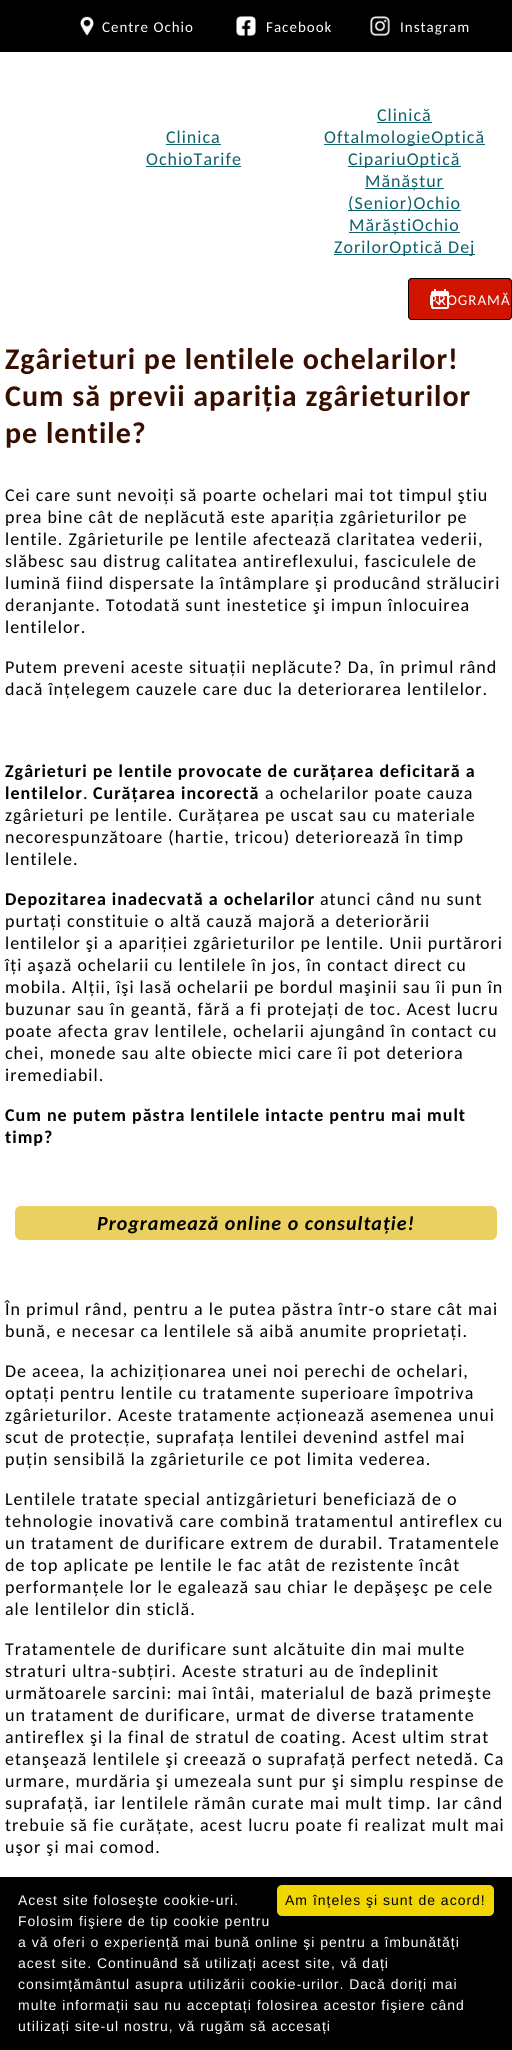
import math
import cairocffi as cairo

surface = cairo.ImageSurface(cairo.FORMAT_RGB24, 512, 2050)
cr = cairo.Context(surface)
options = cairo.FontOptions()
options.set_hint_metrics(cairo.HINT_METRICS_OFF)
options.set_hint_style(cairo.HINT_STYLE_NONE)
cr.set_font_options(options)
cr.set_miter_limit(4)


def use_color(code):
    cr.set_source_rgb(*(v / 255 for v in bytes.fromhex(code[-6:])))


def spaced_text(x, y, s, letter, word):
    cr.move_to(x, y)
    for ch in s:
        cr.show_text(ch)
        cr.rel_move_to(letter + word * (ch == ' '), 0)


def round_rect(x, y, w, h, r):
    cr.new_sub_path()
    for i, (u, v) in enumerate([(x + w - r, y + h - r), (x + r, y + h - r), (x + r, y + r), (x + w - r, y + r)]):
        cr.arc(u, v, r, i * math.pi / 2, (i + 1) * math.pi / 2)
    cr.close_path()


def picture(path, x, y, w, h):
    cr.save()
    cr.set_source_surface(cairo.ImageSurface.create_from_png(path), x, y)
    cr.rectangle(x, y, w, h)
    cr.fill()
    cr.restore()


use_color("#ffffff")
cr.paint()
use_color("#000000")
cr.rectangle(0, 0, 512, 52)
cr.fill()
picture("img1.png", 80, 16, 14, 20)
cr.select_font_face("Carlito")
cr.set_font_size(15)
use_color("#ffffff")
spaced_text(102, 32, "Centre Ochio", 1, 0)
picture("img2.png", 236, 16, 20, 20)
spaced_text(266, 32, "Facebook", 1, 0)
picture("img3.png", 370, 16, 20, 20)
spaced_text(400, 32, "Instagram", 1, 0)
cr.set_font_size(18)
use_color("#0f606b")
spaced_text(166, 143, "Clinica", 1, 0)
cr.rectangle(166, 144, 55, 1)
cr.fill()
spaced_text(146, 165, "OchioTarife", 1, 0)
cr.rectangle(146, 166, 95, 1)
cr.fill()
spaced_text(377, 121, "Clinică", 1, 0)
cr.rectangle(377, 122, 55, 1)
cr.fill()
cr.rectangle(324, 144, 161, 1)
cr.fill()
spaced_text(324, 143, "OftalmologieOptică", 1, 0)
cr.rectangle(348, 166, 113, 1)
cr.fill()
spaced_text(348, 165, "CipariuOptică", 1, 0)
cr.rectangle(365, 188, 79, 1)
cr.fill()
spaced_text(365, 187, "Mănăștur", 1, 0)
cr.rectangle(348, 210, 113, 1)
cr.fill()
spaced_text(348, 209, "(Senior)Ochio", 1, 0)
cr.rectangle(349, 232, 111, 1)
cr.fill()
spaced_text(349, 231, "MărăștiOchio", 1, 0)
cr.rectangle(334, 254, 141, 1)
cr.fill()
spaced_text(334, 253, "ZorilorOptică Dej", 1, 0)
use_color("#d11400")
round_rect(408, 278, 104, 42, 4)
cr.fill()
picture("img4.png", 431, 289, 18, 20)
round_rect(408.5, 278.5, 103, 41, 3.5)
use_color("#000000")
cr.set_line_width(1)
cr.stroke()
cr.set_font_size(15)
use_color("#ffffff")
spaced_text(429, 305, "PROGRAMĂ", 1, 0)
cr.select_font_face("Carlito", cairo.FONT_SLANT_NORMAL, cairo.FONT_WEIGHT_BOLD)
cr.set_font_size(30)
use_color("#370e00")
spaced_text(5, 369, "Zgârieturi pe lentilele ochelarilor!", 1, 0)
spaced_text(5, 406, "Cum să previi apariția zgârieturilor", 1, 0)
spaced_text(5, 443, "pe lentile?", 1, 0)
cr.select_font_face("Carlito")
cr.set_font_size(18)
use_color("#000000")
spaced_text(5, 501, "Cei care sunt nevoiți să poarte ochelari mai tot timpul ştiu", 1, 0)
spaced_text(5, 523, "prea bine cât de neplăcută este apariția zgârieturilor pe", 1, 0)
spaced_text(5, 545, "lentile. Zgârieturile pe lentile afectează claritatea vederii,", 1, 0)
spaced_text(5, 567, "slăbesc sau distrug calitatea antireflexului, fasciculele de", 1, 0)
spaced_text(5, 589, "lumină fiind dispersate la întâmplare şi producând străluciri", 1, 0)
spaced_text(5, 611, "deranjante. Totodată sunt inestetice şi impun înlocuirea", 1, 0)
spaced_text(5, 633, "lentilelor.", 1, 0)
spaced_text(5, 673, "Putem preveni aceste situații neplăcute? Da, în primul rând", 1, 0)
spaced_text(5, 695, "dacă înțelegem cauzele care duc la deteriorarea lentilelor.", 1, 0)
cr.select_font_face("Carlito", cairo.FONT_SLANT_NORMAL, cairo.FONT_WEIGHT_BOLD)
spaced_text(5, 777, "Zgârieturi pe lentile provocate de curățarea deficitară a", 1, 0)
spaced_text(5, 799, "lentilelor", 1, 0)
cr.select_font_face("Carlito")
spaced_text(83, 799, ".", 1, 0)
cr.select_font_face("Carlito", cairo.FONT_SLANT_NORMAL, cairo.FONT_WEIGHT_BOLD)
spaced_text(93, 799, "Curățarea incorectă", 1, 0)
cr.select_font_face("Carlito")
spaced_text(265, 799, "a ochelarilor poate cauza", 1, 0)
spaced_text(5, 821, "zgârieturi pe lentile. Curățarea pe uscat sau cu materiale", 1, 0)
spaced_text(5, 843, "necorespunzătoare (hartie, tricou) deteriorează în timp", 1, 0)
spaced_text(5, 865, "lentilele.", 1, 0)
cr.select_font_face("Carlito", cairo.FONT_SLANT_NORMAL, cairo.FONT_WEIGHT_BOLD)
spaced_text(5, 905, "Depozitarea inadecvată a ochelarilor", 1, 0)
cr.select_font_face("Carlito")
spaced_text(320, 905, "atunci când nu sunt", 1, 0)
spaced_text(5, 927, "purtați constituie o altă cauză majoră a deteriorării", 1, 0)
spaced_text(5, 949, "lentilelor şi a apariției zgârieturilor pe lentile. Unii purtărori", 1, 0)
spaced_text(5, 971, "îți aşază ochelarii cu lentilele în jos, în contact direct cu", 1, 0)
spaced_text(5, 993, "mobila. Alții, îşi lasă ochelarii pe bordul maşinii sau îi pun în", 1, 0)
spaced_text(5, 1015, "buzunar sau în geantă, fără a fi protejați de toc. Acest lucru", 1, 0)
spaced_text(5, 1037, "poate afecta grav lentilele, ochelarii ajungând în contact cu", 1, 0)
spaced_text(5, 1059, "chei, monede sau alte obiecte mici care îi pot deteriora", 1, 0)
spaced_text(5, 1081, "iremediabil.", 1, 0)
cr.select_font_face("Carlito", cairo.FONT_SLANT_NORMAL, cairo.FONT_WEIGHT_BOLD)
spaced_text(5, 1121, "Cum ne putem păstra lentilele intacte pentru mai mult", 1, 0)
spaced_text(5, 1143, "timp?", 1, 0)
use_color("#eacf61")
round_rect(15, 1206, 482, 34, 6)
cr.fill()
cr.select_font_face("Carlito", cairo.FONT_SLANT_ITALIC, cairo.FONT_WEIGHT_BOLD)
cr.set_font_size(20)
use_color("#000000")
spaced_text(97, 1230, "Programează online o consultație!", 1, 0)
cr.select_font_face("Carlito")
cr.set_font_size(18)
spaced_text(5, 1315, "În primul rând, pentru a le putea păstra într-o stare cât mai", 1, 0)
spaced_text(5, 1337, "bună, e necesar ca lentilele să aibă anumite proprietați.", 1, 0)
spaced_text(5, 1377, "De aceea, la achiziționarea unei noi perechi de ochelari,", 1, 0)
spaced_text(5, 1399, "optați pentru lentile cu tratamente superioare împotriva", 1, 0)
spaced_text(5, 1421, "zgârieturilor. Aceste tratamente acționează asemenea unui", 1, 0)
spaced_text(5, 1443, "scut de protecție, suprafața lentilei devenind astfel mai", 1, 0)
spaced_text(5, 1465, "puțin sensibilă la zgârieturile ce pot limita vederea.", 1, 0)
spaced_text(5, 1505, "Lentilele tratate special antizgârieturi beneficiază de o", 1, 0)
spaced_text(5, 1527, "tehnologie inovativă care combină tratamentul antireflex cu", 1, 0)
spaced_text(5, 1549, "un tratament de durificare extrem de durabil. Tratamentele", 1, 0)
spaced_text(5, 1571, "de top aplicate pe lentile le fac atât de rezistente încât", 1, 0)
spaced_text(5, 1593, "performanțele lor le egalează sau chiar le depăşeşc pe cele", 1, 0)
spaced_text(5, 1615, "ale lentilelor din sticlă.", 1, 0)
spaced_text(5, 1655, "Tratamentele de durificare sunt alcătuite din mai multe", 1, 0)
spaced_text(5, 1677, "straturi ultra-subțiri. Aceste straturi au de îndeplinit", 1, 0)
spaced_text(5, 1699, "următoarele sarcini: mai întâi, materialul de bază primeşte", 1, 0)
spaced_text(5, 1721, "un tratament de durificare, urmat de diverse tratamente", 1, 0)
spaced_text(5, 1743, "antireflex şi la final de stratul de coating. Acest ultim strat", 1, 0)
spaced_text(5, 1765, "etanşează lentilele şi creează o suprafață perfect netedă. Ca", 1, 0)
spaced_text(5, 1787, "urmare, murdăria şi umezeala sunt pur şi simplu respinse de", 1, 0)
spaced_text(5, 1809, "suprafață, iar lentilele rămân curate mai mult timp. Iar când", 1, 0)
spaced_text(5, 1831, "trebuie să fie curățate, acest lucru poate fi realizat mult mai", 1, 0)
spaced_text(5, 1853, "uşor şi mai comod.", 1, 0)
cr.rectangle(0, 1877, 512, 173)
cr.fill()
cr.select_font_face("Liberation Sans")
cr.set_font_size(14)
use_color("#ffffff")
spaced_text(18, 1905, "Acest site foloseşte cookie-uri.", 1, 0)
spaced_text(18, 1926, "Folosim fişiere de tip cookie pentru", 1, 0)
spaced_text(18, 1947, "a vă oferi o experiență mai bună online şi pentru a îmbunătăți", 1, 0)
spaced_text(18, 1968, "acest site. Continuând să utilizați acest site, vă dați", 1, 0)
spaced_text(18, 1989, "consimțământul asupra utilizării cookie-urilor. Dacă doriți mai", 1, 0)
spaced_text(18, 2010, "multe informații sau nu acceptați folosirea acestor fişiere când", 1, 0)
spaced_text(18, 2031, "utilizați site-ul nostru, vă rugăm să accesați", 1, 0)
use_color("#f1d600")
round_rect(277, 1885, 217, 31, 5)
cr.fill()
use_color("#000000")
spaced_text(285, 1905, "Am înțeles şi sunt de acord!", 1, 0)
surface.write_to_png("result.png")
